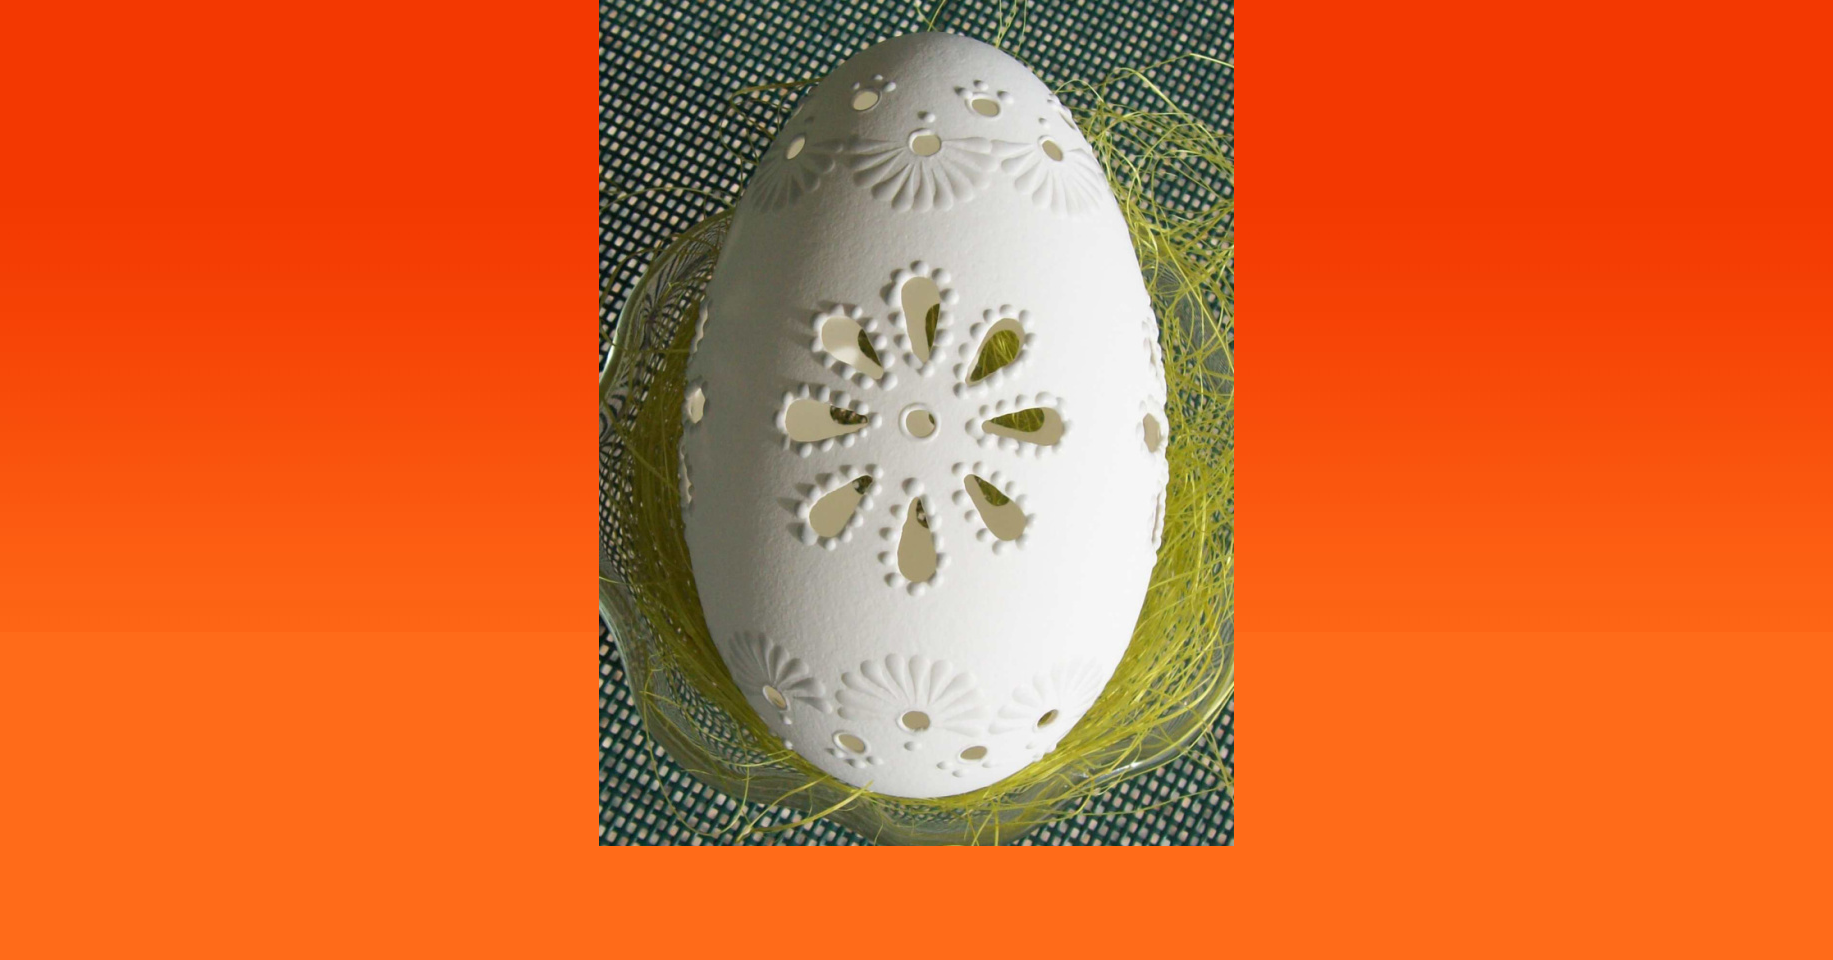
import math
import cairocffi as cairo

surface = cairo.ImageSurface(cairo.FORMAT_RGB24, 1833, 960)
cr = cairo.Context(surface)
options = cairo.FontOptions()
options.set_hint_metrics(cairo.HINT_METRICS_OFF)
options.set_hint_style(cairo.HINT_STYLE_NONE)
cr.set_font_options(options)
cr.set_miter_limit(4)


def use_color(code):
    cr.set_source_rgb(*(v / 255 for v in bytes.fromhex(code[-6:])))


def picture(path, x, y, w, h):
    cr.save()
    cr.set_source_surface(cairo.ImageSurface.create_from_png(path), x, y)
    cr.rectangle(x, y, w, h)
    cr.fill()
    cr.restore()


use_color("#ff6b19")
cr.paint()
picture("img1.png", 0, 0, 1833, 632)
picture("img2.png", 599, 0, 635, 846)
surface.write_to_png("result.png")
